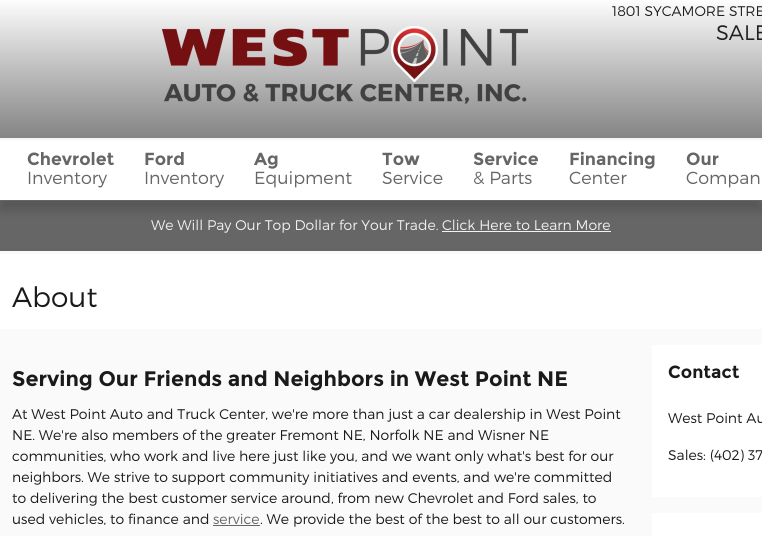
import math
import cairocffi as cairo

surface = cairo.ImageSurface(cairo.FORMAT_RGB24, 762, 536)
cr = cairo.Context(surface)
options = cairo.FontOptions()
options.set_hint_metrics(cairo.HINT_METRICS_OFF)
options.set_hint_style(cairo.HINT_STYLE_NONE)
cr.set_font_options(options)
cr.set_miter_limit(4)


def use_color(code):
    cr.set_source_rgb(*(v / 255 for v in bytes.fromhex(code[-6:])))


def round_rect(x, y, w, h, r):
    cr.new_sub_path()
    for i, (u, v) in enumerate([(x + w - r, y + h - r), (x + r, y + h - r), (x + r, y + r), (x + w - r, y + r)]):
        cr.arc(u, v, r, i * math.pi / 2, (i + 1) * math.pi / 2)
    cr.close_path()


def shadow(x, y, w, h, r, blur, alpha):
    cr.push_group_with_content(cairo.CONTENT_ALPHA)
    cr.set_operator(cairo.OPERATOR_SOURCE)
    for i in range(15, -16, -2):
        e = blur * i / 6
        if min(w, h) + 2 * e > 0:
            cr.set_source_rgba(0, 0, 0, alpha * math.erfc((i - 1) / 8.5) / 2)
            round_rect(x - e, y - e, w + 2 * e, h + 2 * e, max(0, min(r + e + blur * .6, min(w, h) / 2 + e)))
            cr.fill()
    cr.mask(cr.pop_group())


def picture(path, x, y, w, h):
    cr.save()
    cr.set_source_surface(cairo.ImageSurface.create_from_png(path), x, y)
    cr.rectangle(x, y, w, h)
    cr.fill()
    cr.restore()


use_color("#fafafa")
cr.paint()
use_color("#666666")
cr.rectangle(0, 201, 762, 50)
cr.fill()
use_color("#000000")
shadow(0, 148, 762, 63, 0, 5, 0.15)
gradient = cairo.LinearGradient(381, 0, 381, 138)
gradient.add_color_stop_rgba(0, 0.992, 0.992, 0.992, 1)
gradient.add_color_stop_rgba(0.5, 0.745, 0.745, 0.745, 1)
gradient.add_color_stop_rgba(1, 0.518, 0.518, 0.518, 1)
cr.set_source(gradient)
cr.rectangle(0, 0, 762, 138)
cr.fill()
picture("img1.png", 162, 26, 366, 78)
cr.select_font_face("Montserrat Light")
cr.set_font_size(14)
use_color("#202020")
cr.move_to(612, 16)
cr.show_text("1801 SYCAMORE STRE")
cr.set_font_size(21)
cr.move_to(716, 40)
cr.show_text("SALE")
use_color("#ffffff")
cr.rectangle(0, 140, 762, 60)
cr.fill()
use_color("#f5f5f5")
cr.rectangle(0, 138, 762, 2)
cr.fill()
use_color("#666666")
cr.rectangle(0, 200, 762, 1)
cr.fill()
cr.select_font_face("Montserrat", cairo.FONT_SLANT_NORMAL, cairo.FONT_WEIGHT_BOLD)
cr.set_font_size(17.5)
cr.move_to(27, 165)
cr.show_text("Chevrolet")
cr.select_font_face("Montserrat Light")
cr.move_to(27, 184)
cr.show_text("Inventory")
cr.select_font_face("Montserrat", cairo.FONT_SLANT_NORMAL, cairo.FONT_WEIGHT_BOLD)
cr.move_to(144, 165)
cr.show_text("Ford")
cr.select_font_face("Montserrat Light")
cr.move_to(144, 184)
cr.show_text("Inventory")
cr.select_font_face("Montserrat", cairo.FONT_SLANT_NORMAL, cairo.FONT_WEIGHT_BOLD)
cr.move_to(254, 165)
cr.show_text("Ag")
cr.select_font_face("Montserrat Light")
cr.move_to(254, 184)
cr.show_text("Equipment")
cr.select_font_face("Montserrat", cairo.FONT_SLANT_NORMAL, cairo.FONT_WEIGHT_BOLD)
cr.move_to(382, 165)
cr.show_text("Tow")
cr.select_font_face("Montserrat Light")
cr.move_to(382, 184)
cr.show_text("Service")
cr.select_font_face("Montserrat", cairo.FONT_SLANT_NORMAL, cairo.FONT_WEIGHT_BOLD)
cr.move_to(473, 165)
cr.show_text("Service")
cr.select_font_face("Montserrat Light")
cr.move_to(473, 184)
cr.show_text("& Parts")
cr.select_font_face("Montserrat", cairo.FONT_SLANT_NORMAL, cairo.FONT_WEIGHT_BOLD)
cr.move_to(569, 165)
cr.show_text("Financing")
cr.select_font_face("Montserrat Light")
cr.move_to(569, 184)
cr.show_text("Center")
cr.select_font_face("Montserrat", cairo.FONT_SLANT_NORMAL, cairo.FONT_WEIGHT_BOLD)
cr.move_to(686, 165)
cr.show_text("Our")
cr.select_font_face("Montserrat Light")
cr.move_to(686, 184)
cr.show_text("Compan")
cr.set_font_size(14)
use_color("#f0f0f0")
cr.move_to(151, 230)
cr.show_text("We Will Pay Our Top Dollar for Your Trade.")
cr.move_to(442, 230)
cr.show_text("Click Here to Learn More")
use_color("#f3f3f3")
cr.rectangle(442, 231, 169, 1)
cr.fill()
use_color("#ffffff")
cr.rectangle(0, 254, 762, 75)
cr.fill()
cr.set_font_size(28)
use_color("#1a1a1a")
cr.move_to(12, 307)
cr.show_text("About")
cr.select_font_face("Montserrat", cairo.FONT_SLANT_NORMAL, cairo.FONT_WEIGHT_BOLD)
cr.set_font_size(21)
cr.move_to(12, 386)
cr.show_text("Serving Our Friends and Neighbors in West Point NE")
cr.select_font_face("Montserrat Light")
cr.set_font_size(14)
cr.move_to(12, 419)
cr.show_text("At West Point Auto and Truck Center, we're more than just a car dealership in West Point")
cr.move_to(12, 440)
cr.show_text("NE. We're also members of the greater Fremont NE, Norfolk NE and Wisner NE")
cr.move_to(12, 461)
cr.show_text("communities, who work and live here just like you, and we want only what's best for our")
cr.move_to(12, 482)
cr.show_text("neighbors. We strive to support community initiatives and events, and we're committed")
cr.move_to(12, 503)
cr.show_text("to delivering the best customer service around, from new Chevrolet and Ford sales, to")
cr.move_to(12, 524)
cr.show_text("used vehicles, to finance and")
use_color("#666666")
cr.move_to(213, 524)
cr.show_text("service")
cr.rectangle(213, 525, 47, 1)
cr.fill()
use_color("#1a1a1a")
cr.move_to(260, 524)
cr.show_text(". We provide the best of the best to all our customers.")
use_color("#ffffff")
cr.rectangle(652, 345, 110, 152)
cr.fill()
cr.select_font_face("Montserrat", cairo.FONT_SLANT_NORMAL, cairo.FONT_WEIGHT_BOLD)
cr.set_font_size(17.5)
use_color("#1a1a1a")
cr.move_to(668, 378)
cr.show_text("Contact")
cr.select_font_face("Montserrat Light")
cr.set_font_size(14)
cr.move_to(668, 423)
cr.show_text("West Point Au")
cr.move_to(668, 460)
cr.show_text("Sales: (402) 37")
use_color("#ffffff")
cr.rectangle(652, 513, 110, 23)
cr.fill()
surface.write_to_png("result.png")
